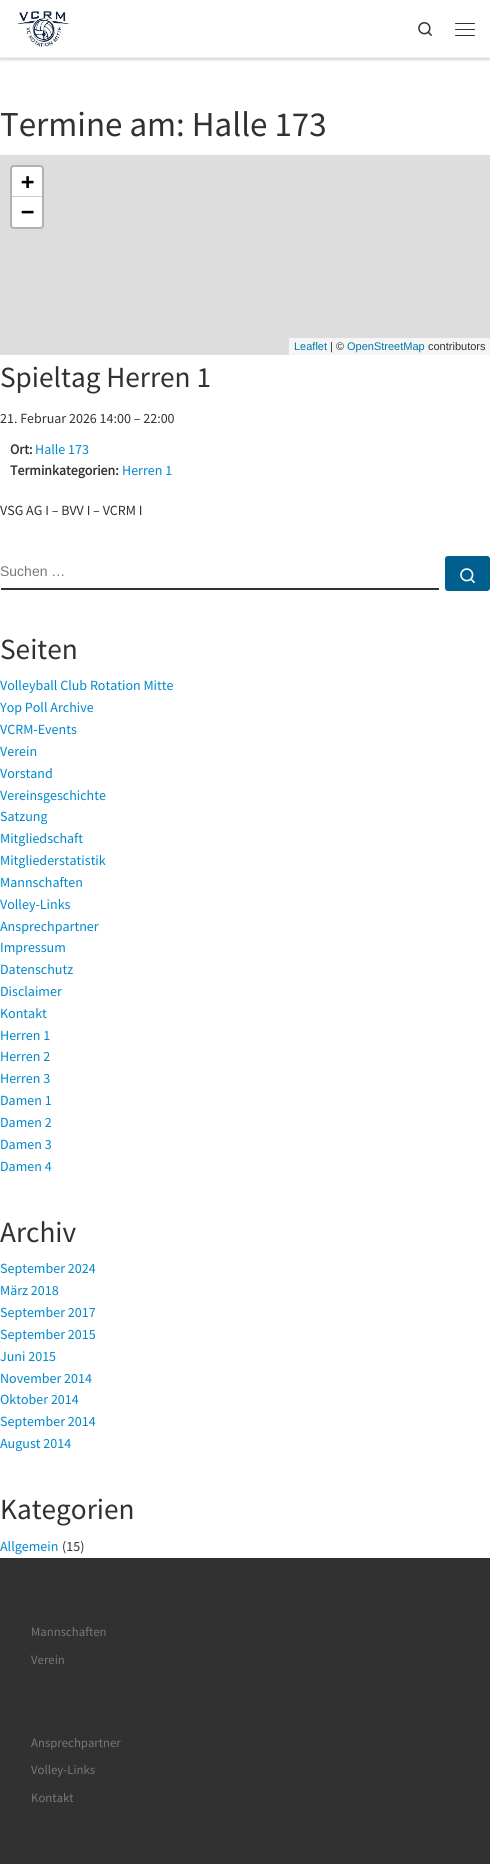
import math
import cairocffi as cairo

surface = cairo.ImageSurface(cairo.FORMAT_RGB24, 490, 1864)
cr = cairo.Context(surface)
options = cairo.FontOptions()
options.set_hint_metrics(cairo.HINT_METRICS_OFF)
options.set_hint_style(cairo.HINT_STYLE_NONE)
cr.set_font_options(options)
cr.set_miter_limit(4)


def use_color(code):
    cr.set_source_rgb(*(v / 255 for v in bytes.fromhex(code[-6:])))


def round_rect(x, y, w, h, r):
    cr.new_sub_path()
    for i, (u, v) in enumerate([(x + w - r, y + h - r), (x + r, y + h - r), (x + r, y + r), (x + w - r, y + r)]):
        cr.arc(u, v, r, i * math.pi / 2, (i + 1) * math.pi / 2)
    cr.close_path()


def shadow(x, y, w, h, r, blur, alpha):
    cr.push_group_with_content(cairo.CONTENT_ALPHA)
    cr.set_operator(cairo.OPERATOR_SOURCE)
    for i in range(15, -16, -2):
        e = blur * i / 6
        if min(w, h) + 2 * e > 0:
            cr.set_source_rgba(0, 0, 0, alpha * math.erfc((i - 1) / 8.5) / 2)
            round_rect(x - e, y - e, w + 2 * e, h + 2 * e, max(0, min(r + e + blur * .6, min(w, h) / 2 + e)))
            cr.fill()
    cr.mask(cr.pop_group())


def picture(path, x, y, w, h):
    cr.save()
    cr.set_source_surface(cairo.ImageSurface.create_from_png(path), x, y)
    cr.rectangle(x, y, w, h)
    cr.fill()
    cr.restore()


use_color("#ffffff")
cr.paint()
cr.save()
cr.rectangle(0, 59, 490, 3)
cr.clip()
use_color("#666666")
shadow(0, 2, 490, 59, 0, 1, 0.08)
cr.restore()
use_color("#efefef")
cr.rectangle(0, 58, 490, 1)
cr.fill()
cr.save()
cr.rectangle(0, 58, 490, 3)
cr.clip()
use_color("#000000")
shadow(0, 0, 490, 58, 0, 2.5, 0.2)
cr.restore()
picture("img1.png", 16, 11, 54, 36)
picture("img2.png", 418, 22, 15, 14)
use_color("#313131")
round_rect(455, 23, 20, 1, 0.5)
cr.fill()
round_rect(455, 29, 20, 1, 0.5)
cr.fill()
round_rect(455, 35, 20, 1, 0.5)
cr.fill()
use_color("#f0f0f0")
cr.rectangle(0, 57, 490, 1)
cr.fill()
cr.select_font_face("Source Sans Pro")
cr.set_font_size(35)
use_color("#303133")
cr.move_to(0, 136)
cr.show_text("Termine am: Halle 173")
use_color("#dddddd")
cr.rectangle(0, 155, 490, 200)
cr.fill()
round_rect(11, 166, 32, 62, 3)
use_color("#b1b1b1")
cr.stroke()
use_color("#ffffff")
cr.new_path()
cr.move_to(14, 167)
cr.line_to(40, 167)
cr.curve_to(41, 167, 42, 168, 42, 169)
cr.line_to(42, 197)
cr.line_to(12, 197)
cr.line_to(12, 169)
cr.curve_to(12, 168, 13, 167, 14, 167)
cr.close_path()
cr.fill()
use_color("#cccccc")
cr.rectangle(12, 196, 30, 1)
cr.fill()
cr.select_font_face("DejaVu Sans Mono", cairo.FONT_SLANT_NORMAL, cairo.FONT_WEIGHT_BOLD)
cr.set_font_size(22)
use_color("#000000")
cr.move_to(21, 189)
cr.show_text("+")
use_color("#ffffff")
cr.new_path()
cr.move_to(12, 197)
cr.line_to(42, 197)
cr.line_to(42, 225)
cr.curve_to(42, 226, 41, 227, 40, 227)
cr.line_to(14, 227)
cr.curve_to(13, 227, 12, 226, 12, 225)
cr.close_path()
cr.fill()
use_color("#000000")
cr.move_to(21, 219)
cr.show_text("−")
use_color("#f5f5f5")
cr.rectangle(289, 338, 201, 17)
cr.fill()
cr.select_font_face("Liberation Sans")
cr.set_font_size(11)
use_color("#0078a8")
cr.move_to(294, 350)
cr.show_text("Leaflet")
use_color("#303133")
cr.move_to(330, 350)
cr.show_text("| ©")
use_color("#0078a8")
cr.move_to(347, 350)
cr.show_text("OpenStreetMap")
use_color("#303133")
cr.move_to(428, 350)
cr.show_text("contributors")
cr.select_font_face("Source Sans Pro")
cr.set_font_size(29.25)
cr.move_to(0, 387)
cr.show_text("Spieltag Herren 1")
cr.set_font_size(14)
cr.move_to(0, 423)
cr.show_text("21. Februar 2026 14:00 – 22:00")
cr.select_font_face("Source Sans Pro", cairo.FONT_SLANT_NORMAL, cairo.FONT_WEIGHT_BOLD)
cr.move_to(10, 454)
cr.show_text("Ort:")
cr.select_font_face("Source Sans Pro")
use_color("#0088cc")
cr.move_to(35, 454)
cr.show_text("Halle 173")
cr.select_font_face("Source Sans Pro", cairo.FONT_SLANT_NORMAL, cairo.FONT_WEIGHT_BOLD)
use_color("#303133")
cr.move_to(10, 475)
cr.show_text("Terminkategorien:")
cr.select_font_face("Source Sans Pro")
use_color("#0088cc")
cr.move_to(122, 475)
cr.show_text("Herren 1")
use_color("#303133")
cr.move_to(0, 515)
cr.show_text("VSG AG I – BVV I – VCRM I")
use_color("#313131")
cr.rectangle(1, 588, 438, 2)
cr.fill()
cr.select_font_face("Liberation Sans")
use_color("#777777")
cr.move_to(0, 576)
cr.show_text("Suchen …")
use_color("#005f8f")
round_rect(446, 557, 43, 33, 2)
cr.fill_preserve()
cr.stroke()
picture("img3.png", 460, 568, 15, 16)
cr.select_font_face("Source Sans Pro")
cr.set_font_size(29.25)
use_color("#303133")
cr.move_to(0, 659)
cr.show_text("Seiten")
cr.set_font_size(14)
use_color("#0088cc")
cr.move_to(0, 690)
cr.show_text("Volleyball Club Rotation Mitte")
cr.move_to(0, 712)
cr.show_text("Yop Poll Archive")
cr.move_to(0, 734)
cr.show_text("VCRM-Events")
cr.move_to(0, 756)
cr.show_text("Verein")
cr.move_to(0, 778)
cr.show_text("Vorstand")
cr.move_to(0, 800)
cr.show_text("Vereinsgeschichte")
cr.move_to(0, 821)
cr.show_text("Satzung")
cr.move_to(0, 843)
cr.show_text("Mitgliedschaft")
cr.move_to(0, 865)
cr.show_text("Mitgliederstatistik")
cr.move_to(0, 887)
cr.show_text("Mannschaften")
cr.move_to(0, 909)
cr.show_text("Volley-Links")
cr.move_to(0, 931)
cr.show_text("Ansprechpartner")
cr.move_to(0, 952)
cr.show_text("Impressum")
cr.move_to(0, 974)
cr.show_text("Datenschutz")
cr.move_to(0, 996)
cr.show_text("Disclaimer")
cr.move_to(0, 1018)
cr.show_text("Kontakt")
cr.move_to(0, 1040)
cr.show_text("Herren 1")
cr.move_to(0, 1061)
cr.show_text("Herren 2")
cr.move_to(0, 1083)
cr.show_text("Herren 3")
cr.move_to(0, 1105)
cr.show_text("Damen 1")
cr.move_to(0, 1127)
cr.show_text("Damen 2")
cr.move_to(0, 1149)
cr.show_text("Damen 3")
cr.move_to(0, 1171)
cr.show_text("Damen 4")
cr.set_font_size(29.25)
use_color("#303133")
cr.move_to(0, 1242)
cr.show_text("Archiv")
cr.set_font_size(14)
use_color("#0088cc")
cr.move_to(0, 1273)
cr.show_text("September 2024")
cr.move_to(0, 1295)
cr.show_text("März 2018")
cr.move_to(0, 1317)
cr.show_text("September 2017")
cr.move_to(0, 1339)
cr.show_text("September 2015")
cr.move_to(0, 1361)
cr.show_text("Juni 2015")
cr.move_to(0, 1383)
cr.show_text("November 2014")
cr.move_to(0, 1404)
cr.show_text("Oktober 2014")
cr.move_to(0, 1426)
cr.show_text("September 2014")
cr.move_to(0, 1448)
cr.show_text("August 2014")
cr.set_font_size(29.25)
use_color("#303133")
cr.move_to(0, 1519)
cr.show_text("Kategorien")
cr.set_font_size(14)
use_color("#0088cc")
cr.move_to(0, 1551)
cr.show_text("Allgemein")
use_color("#303133")
cr.move_to(62, 1551)
cr.show_text("(15)")
use_color("#313131")
cr.rectangle(0, 1558, 490, 306)
cr.fill()
cr.set_font_size(12.75)
use_color("#777777")
cr.move_to(31, 1636)
cr.show_text("Mannschaften")
cr.move_to(31, 1664)
cr.show_text("Verein")
cr.move_to(31, 1747)
cr.show_text("Ansprechpartner")
cr.move_to(31, 1774)
cr.show_text("Volley-Links")
cr.move_to(31, 1802)
cr.show_text("Kontakt")
surface.write_to_png("result.png")
